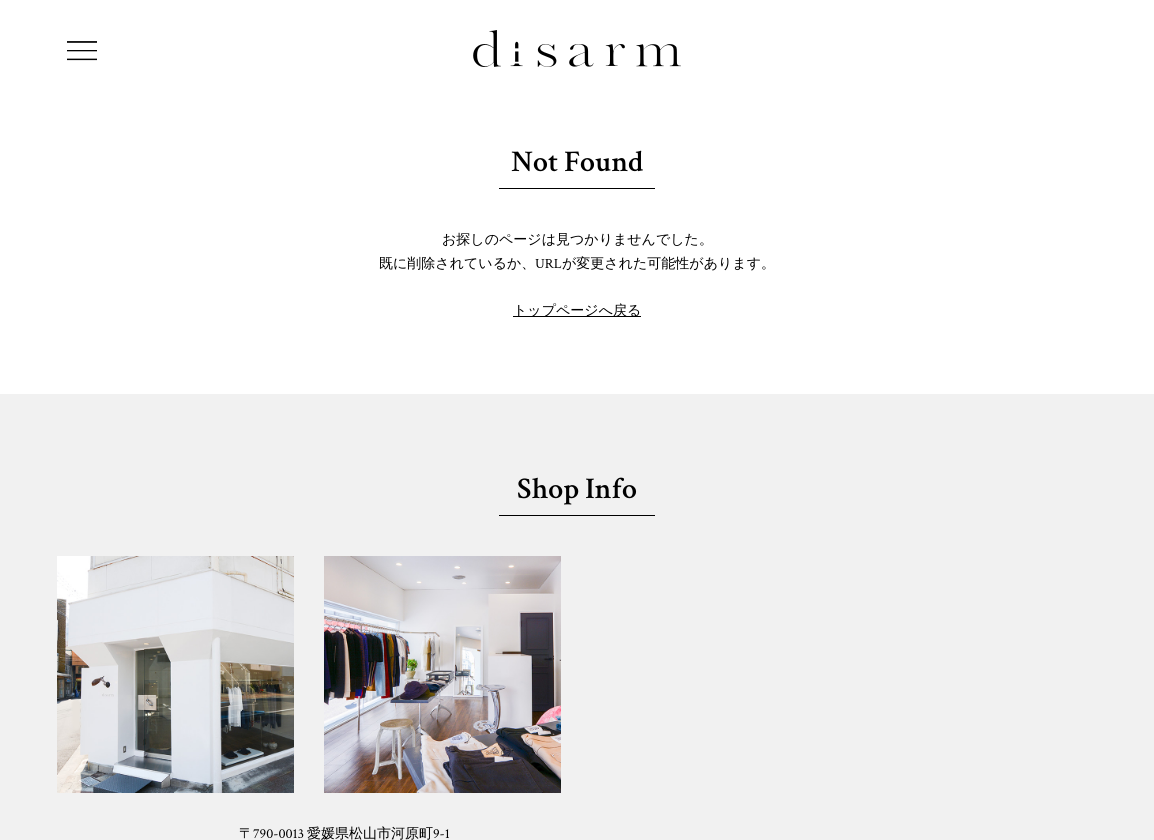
import math
import cairocffi as cairo

surface = cairo.ImageSurface(cairo.FORMAT_RGB24, 1154, 840)
cr = cairo.Context(surface)
options = cairo.FontOptions()
options.set_hint_metrics(cairo.HINT_METRICS_OFF)
options.set_hint_style(cairo.HINT_STYLE_NONE)
cr.set_font_options(options)
cr.set_miter_limit(4)


def use_color(code):
    cr.set_source_rgb(*(v / 255 for v in bytes.fromhex(code[-6:])))


def picture(path, x, y, w, h):
    cr.save()
    cr.set_source_surface(cairo.ImageSurface.create_from_png(path), x, y)
    cr.rectangle(x, y, w, h)
    cr.fill()
    cr.restore()


use_color("#ffffff")
cr.paint()
picture("img1.png", 67, 41, 30, 20)
picture("img2.png", 473, 30, 208, 37)
cr.select_font_face("Crimson Text SemiBold")
cr.set_font_size(30)
use_color("#000000")
cr.move_to(511, 171)
cr.show_text("Not Found")
cr.rectangle(499, 188, 156, 1)
cr.fill()
cr.select_font_face("WenQuanYi Zen Hei Medium")
cr.set_font_size(14)
cr.move_to(442, 244)
cr.show_text("お探しのページは見つかりませんでした。")
cr.move_to(379, 268)
cr.show_text("既に削除されているか、")
cr.select_font_face("Crimson Text")
cr.move_to(535, 268)
cr.show_text("URL")
cr.select_font_face("WenQuanYi Zen Hei Medium")
cr.move_to(562, 268)
cr.show_text("が変更された可能性があります。")
cr.rectangle(513, 316, 128, 1)
cr.fill()
cr.move_to(513, 315)
cr.show_text("トップページへ戻る")
use_color("#f1f1f1")
cr.rectangle(0, 394, 1154, 446)
cr.fill()
cr.select_font_face("Crimson Text SemiBold")
cr.set_font_size(30)
use_color("#000000")
cr.move_to(517, 498)
cr.show_text("Shop Info")
cr.rectangle(499, 515, 156, 1)
cr.fill()
picture("img3.png", 57, 556, 237, 237)
picture("img4.png", 324, 556, 237, 237)
cr.select_font_face("WenQuanYi Zen Hei Medium")
cr.set_font_size(14)
cr.move_to(239, 838)
cr.show_text("〒")
cr.select_font_face("Crimson Text")
cr.move_to(253, 838)
cr.show_text("790-0013")
cr.select_font_face("WenQuanYi Zen Hei Medium")
cr.move_to(307, 838)
cr.show_text("愛媛県松山市河原町")
cr.select_font_face("Crimson Text")
cr.move_to(433, 838)
cr.show_text("9-1")
surface.write_to_png("result.png")
